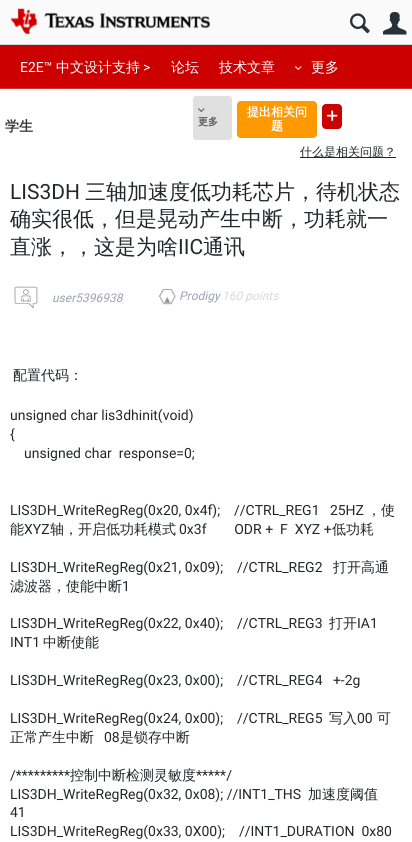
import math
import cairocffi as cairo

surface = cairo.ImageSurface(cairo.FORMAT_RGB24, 412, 842)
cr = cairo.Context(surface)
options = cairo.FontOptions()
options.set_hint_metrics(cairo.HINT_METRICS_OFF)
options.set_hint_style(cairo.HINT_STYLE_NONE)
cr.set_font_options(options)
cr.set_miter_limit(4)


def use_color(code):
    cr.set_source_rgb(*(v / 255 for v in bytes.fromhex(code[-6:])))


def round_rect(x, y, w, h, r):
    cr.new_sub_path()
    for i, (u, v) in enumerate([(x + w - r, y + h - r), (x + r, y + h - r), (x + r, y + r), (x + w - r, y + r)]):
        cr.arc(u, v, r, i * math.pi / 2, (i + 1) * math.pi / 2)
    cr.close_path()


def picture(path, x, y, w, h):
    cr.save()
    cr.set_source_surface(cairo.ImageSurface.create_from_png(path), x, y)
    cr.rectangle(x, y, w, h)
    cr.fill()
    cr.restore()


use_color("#ffffff")
cr.paint()
use_color("#cfd8dc")
cr.rectangle(0, 44, 412, 1)
cr.fill()
use_color("#fafafa")
cr.rectangle(0, 0, 412, 44)
cr.fill()
picture("img1.png", 10, 8, 200, 26)
picture("img2.png", 350, 13, 20, 21)
picture("img3.png", 383, 12, 24, 23)
use_color("#cc0000")
cr.rectangle(0, 45, 412, 43)
cr.fill()
use_color("#d63333")
cr.rectangle(0, 88, 412, 1)
cr.fill()
cr.select_font_face("Roboto")
cr.set_font_size(14)
use_color("#ffffff")
cr.move_to(20, 72)
cr.show_text("E2E™")
cr.select_font_face("WenQuanYi Zen Hei Medium")
cr.move_to(56, 72)
cr.show_text("中文设计支持")
cr.select_font_face("Roboto")
cr.move_to(143, 72)
cr.show_text(">")
cr.select_font_face("WenQuanYi Zen Hei Medium")
cr.move_to(171, 72)
cr.show_text("论坛")
cr.move_to(219, 72)
cr.show_text("技术文章")
picture("img4.png", 295, 66, 7, 4)
cr.move_to(311, 72)
cr.show_text("更多")
cr.select_font_face("WenQuanYi Zen Hei", cairo.FONT_SLANT_NORMAL, cairo.FONT_WEIGHT_BOLD)
use_color("#333333")
cr.move_to(5, 131)
cr.show_text("学生")
use_color("#e0e0e0")
round_rect(193, 96, 39, 44, 3)
cr.fill()
picture("img5.png", 198, 108, 7, 4)
cr.set_font_size(10)
use_color("#555555")
cr.move_to(198, 125)
cr.show_text("更多")
use_color("#cc0000")
round_rect(322, 104, 20, 25, 4)
cr.fill()
picture("img6.png", 327, 110, 11, 11)
use_color("#ff9900")
round_rect(237, 101, 80, 37, 4)
cr.fill()
cr.set_font_size(12)
use_color("#ffffff")
cr.move_to(247, 116)
cr.show_text("提出相关问")
cr.move_to(271, 130)
cr.show_text("题")
use_color("#22252c")
cr.rectangle(300, 157, 96, 1)
cr.fill()
cr.select_font_face("WenQuanYi Zen Hei Medium")
cr.move_to(300, 156)
cr.show_text("什么是相关问题？")
cr.select_font_face("Roboto")
cr.set_font_size(21)
cr.move_to(10, 199)
cr.show_text("LIS3DH")
cr.select_font_face("WenQuanYi Zen Hei Medium")
cr.move_to(85, 199)
cr.show_text("三轴加速度低功耗芯片，待机状态")
cr.move_to(10, 226)
cr.show_text("确实很低，但是晃动产生中断，功耗就一")
cr.move_to(10, 254)
cr.show_text("直涨，，这是为啥")
cr.select_font_face("Roboto")
cr.move_to(178, 254)
cr.show_text("IIC")
cr.select_font_face("WenQuanYi Zen Hei Medium")
cr.move_to(203, 254)
cr.show_text("通讯")
picture("img7.png", 14, 286, 24, 23)
cr.select_font_face("Roboto", cairo.FONT_SLANT_ITALIC)
cr.set_font_size(12)
use_color("#9ba2b2")
cr.move_to(52, 302)
cr.show_text("user5396938")
picture("img8.png", 159, 289, 17, 16)
cr.move_to(179, 300)
cr.show_text("Prodigy")
use_color("#d5d8de")
cr.move_to(222, 300)
cr.show_text("160 points")
cr.select_font_face("WenQuanYi Zen Hei Medium")
cr.set_font_size(14)
use_color("#22252c")
cr.move_to(13, 380)
cr.show_text("配置代码：")
cr.select_font_face("Roboto")
cr.move_to(10, 420)
cr.show_text("unsigned char lis3dhinit(void)")
cr.move_to(10, 439)
cr.show_text("{")
cr.move_to(24, 458)
cr.show_text("unsigned char  response=0;")
cr.move_to(10, 515)
cr.show_text("LIS3DH_WriteRegReg(0x20, 0x4f);    //CTRL_REG1   25HZ")
cr.select_font_face("WenQuanYi Zen Hei Medium")
cr.move_to(367, 515)
cr.show_text("，使")
cr.move_to(10, 534)
cr.show_text("能")
cr.select_font_face("Roboto")
cr.move_to(24, 534)
cr.show_text("XYZ")
cr.select_font_face("WenQuanYi Zen Hei Medium")
cr.move_to(50, 534)
cr.show_text("轴，开启低功耗模式")
cr.select_font_face("Roboto")
cr.move_to(179, 534)
cr.show_text("0x3f        ODR +  F  XYZ +")
cr.select_font_face("WenQuanYi Zen Hei Medium")
cr.move_to(332, 534)
cr.show_text("低功耗")
cr.select_font_face("Roboto")
cr.move_to(10, 572)
cr.show_text("LIS3DH_WriteRegReg(0x21, 0x09);    //CTRL_REG2")
cr.select_font_face("WenQuanYi Zen Hei Medium")
cr.move_to(333, 572)
cr.show_text("打开高通")
cr.move_to(10, 591)
cr.show_text("滤波器，使能中断")
cr.select_font_face("Roboto")
cr.move_to(122, 591)
cr.show_text("1")
cr.move_to(10, 628)
cr.show_text("LIS3DH_WriteRegReg(0x22, 0x40);    //CTRL_REG3")
cr.select_font_face("WenQuanYi Zen Hei Medium")
cr.move_to(329, 628)
cr.show_text("打开")
cr.select_font_face("Roboto")
cr.move_to(357, 628)
cr.show_text("IA1")
cr.move_to(10, 647)
cr.show_text("INT1")
cr.select_font_face("WenQuanYi Zen Hei Medium")
cr.move_to(43, 647)
cr.show_text("中断使能")
cr.select_font_face("Roboto")
cr.move_to(10, 685)
cr.show_text("LIS3DH_WriteRegReg(0x23, 0x00);    //CTRL_REG4   +-2g")
cr.move_to(10, 723)
cr.show_text("LIS3DH_WriteRegReg(0x24, 0x00);    //CTRL_REG5")
cr.select_font_face("WenQuanYi Zen Hei Medium")
cr.move_to(329, 723)
cr.show_text("写入")
cr.select_font_face("Roboto")
cr.move_to(357, 723)
cr.show_text("00")
cr.select_font_face("WenQuanYi Zen Hei Medium")
cr.move_to(377, 723)
cr.show_text("可")
cr.move_to(10, 742)
cr.show_text("正常产生中断")
cr.select_font_face("Roboto")
cr.move_to(104, 742)
cr.show_text("08")
cr.select_font_face("WenQuanYi Zen Hei Medium")
cr.move_to(120, 742)
cr.show_text("是锁存中断")
cr.select_font_face("Roboto")
cr.move_to(10, 780)
cr.show_text("/*********")
cr.select_font_face("WenQuanYi Zen Hei Medium")
cr.move_to(70, 780)
cr.show_text("控制中断检测灵敏度")
cr.select_font_face("Roboto")
cr.move_to(196, 780)
cr.show_text("*****/")
cr.move_to(10, 799)
cr.show_text("LIS3DH_WriteRegReg(0x32, 0x08); //INT1_THS")
cr.select_font_face("WenQuanYi Zen Hei Medium")
cr.move_to(308, 799)
cr.show_text("加速度阈值")
cr.select_font_face("Roboto")
cr.move_to(10, 817)
cr.show_text("41")
cr.move_to(10, 836)
cr.show_text("LIS3DH_WriteRegReg(0x33, 0X00);    //INT1_DURATION  0x80")
surface.write_to_png("result.png")
